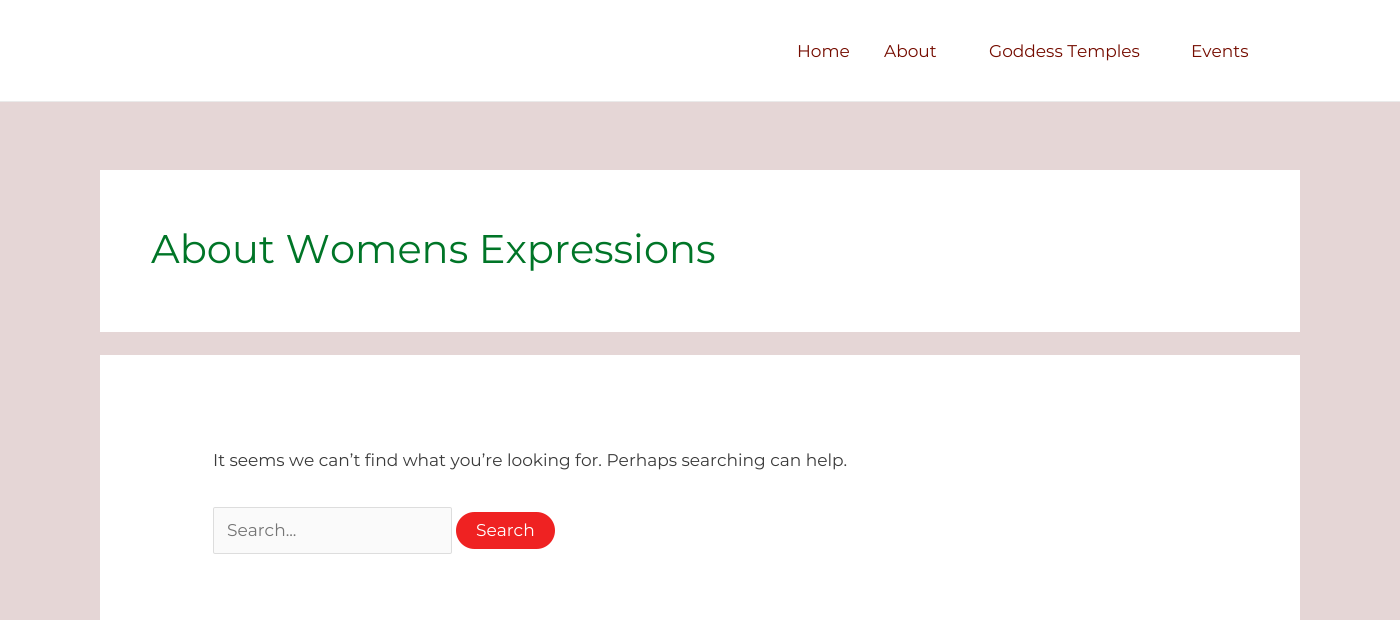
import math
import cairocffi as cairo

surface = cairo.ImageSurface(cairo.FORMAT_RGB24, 1400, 620)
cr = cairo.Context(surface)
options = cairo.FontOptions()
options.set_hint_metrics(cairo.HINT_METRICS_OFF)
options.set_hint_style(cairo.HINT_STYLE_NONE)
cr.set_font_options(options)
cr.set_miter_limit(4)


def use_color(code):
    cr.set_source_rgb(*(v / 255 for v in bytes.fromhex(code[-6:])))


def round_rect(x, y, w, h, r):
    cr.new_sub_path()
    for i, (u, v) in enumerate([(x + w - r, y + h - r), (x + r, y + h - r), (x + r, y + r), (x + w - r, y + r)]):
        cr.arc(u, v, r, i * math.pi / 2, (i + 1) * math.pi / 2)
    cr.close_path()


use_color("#e5d6d6")
cr.paint()
use_color("#ffffff")
cr.rectangle(0, 0, 1400, 101)
cr.fill()
use_color("#eaeaea")
cr.rectangle(0, 101, 1400, 1)
cr.fill()
cr.select_font_face("Montserrat Thin")
cr.set_font_size(17)
use_color("#750c00")
cr.move_to(797, 57)
cr.show_text("Home")
cr.move_to(884, 57)
cr.show_text("About")
cr.move_to(989, 57)
cr.show_text("Goddess Temples")
cr.move_to(1191, 57)
cr.show_text("Events")
use_color("#ffffff")
cr.rectangle(100, 170, 1200, 162)
cr.fill()
cr.set_font_size(40)
use_color("#007527")
cr.move_to(151, 263)
cr.show_text("About Womens Expressions")
use_color("#ffffff")
cr.rectangle(100, 355, 1200, 265)
cr.fill()
cr.set_font_size(17)
use_color("#3a3a3a")
cr.move_to(213, 466)
cr.show_text("It seems we can’t find what you’re looking for. Perhaps searching can help.")
use_color("#fafafa")
round_rect(213.5, 507.5, 238, 46, 1.5)
cr.fill_preserve()
use_color("#dddddd")
cr.set_line_width(1)
cr.stroke()
use_color("#757575")
cr.move_to(227, 536)
cr.show_text("Search...")
use_color("#ef2222")
round_rect(456, 512, 99, 37, 18.5)
cr.fill()
use_color("#ffffff")
cr.move_to(476, 536)
cr.show_text("Search")
surface.write_to_png("result.png")
